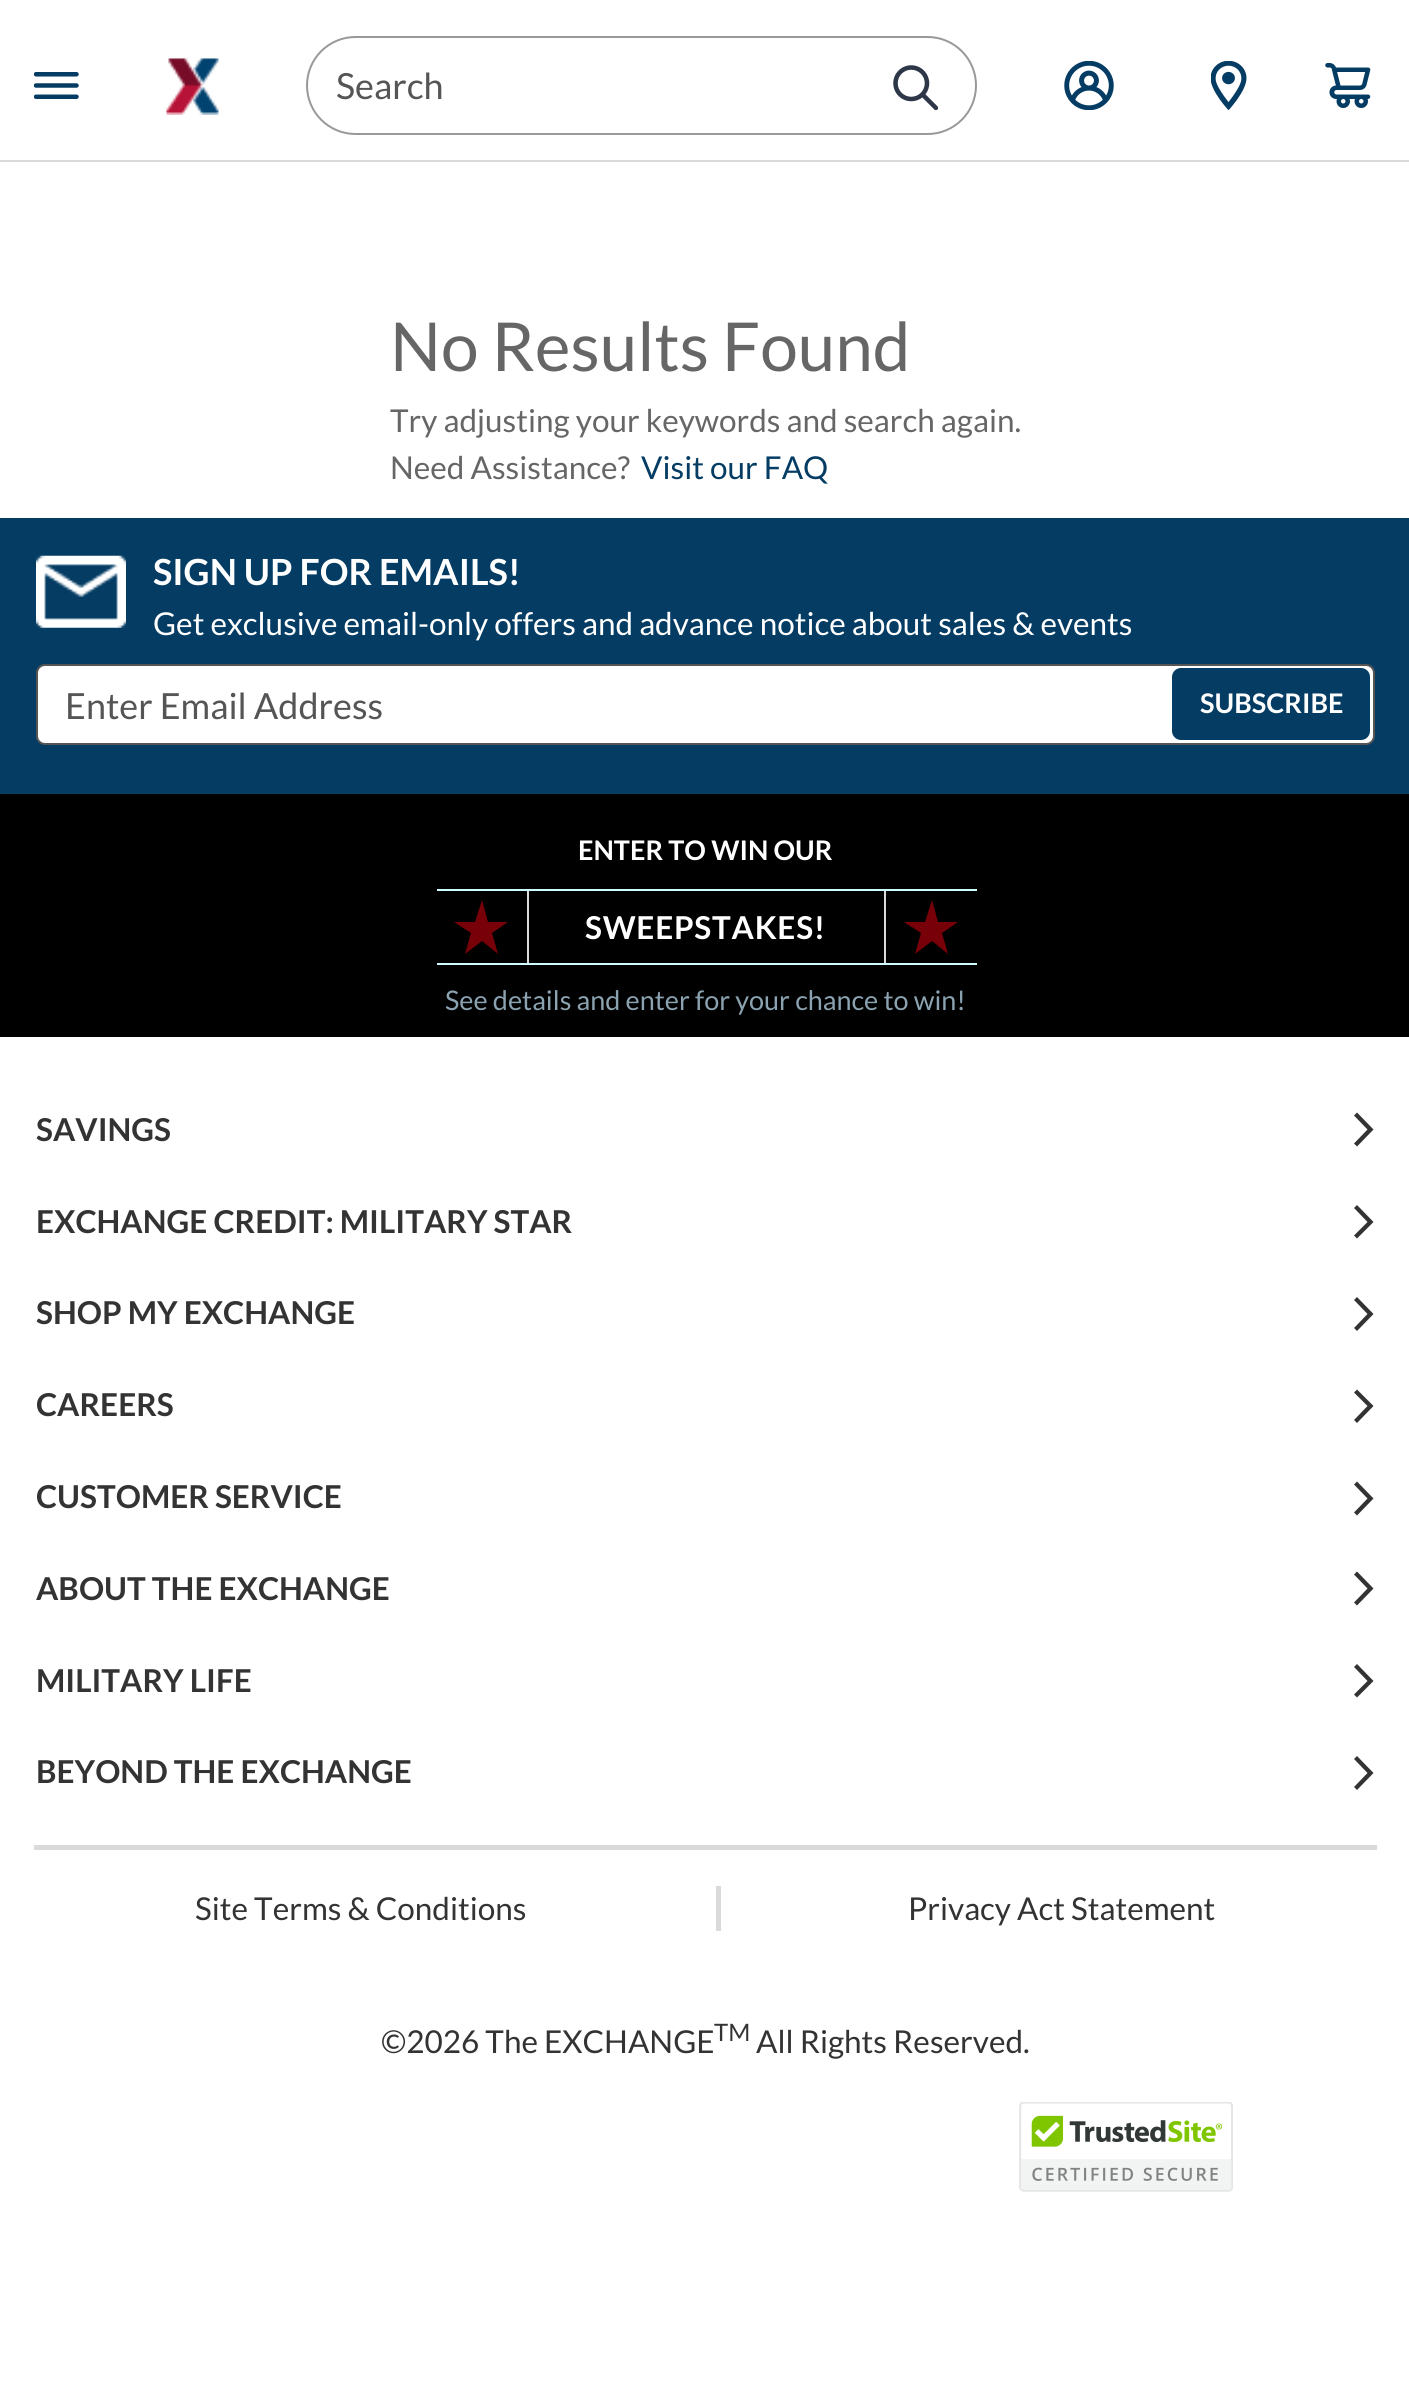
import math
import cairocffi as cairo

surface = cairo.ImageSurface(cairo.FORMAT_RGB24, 1409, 2393)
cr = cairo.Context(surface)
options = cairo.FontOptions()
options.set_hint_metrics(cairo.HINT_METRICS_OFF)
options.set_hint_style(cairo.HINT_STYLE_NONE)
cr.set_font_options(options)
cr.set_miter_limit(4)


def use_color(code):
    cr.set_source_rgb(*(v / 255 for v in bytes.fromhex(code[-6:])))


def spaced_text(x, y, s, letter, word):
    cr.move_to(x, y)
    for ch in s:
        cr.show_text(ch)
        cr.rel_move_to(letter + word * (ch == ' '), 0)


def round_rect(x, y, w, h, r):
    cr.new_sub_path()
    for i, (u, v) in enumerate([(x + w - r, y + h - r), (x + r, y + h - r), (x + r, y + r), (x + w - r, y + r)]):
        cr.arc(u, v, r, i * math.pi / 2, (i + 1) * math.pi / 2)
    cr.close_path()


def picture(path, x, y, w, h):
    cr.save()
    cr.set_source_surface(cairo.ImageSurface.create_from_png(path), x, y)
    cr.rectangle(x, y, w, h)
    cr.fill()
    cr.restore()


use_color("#ffffff")
cr.paint()
use_color("#dadada")
cr.rectangle(0, 160, 1409, 2)
cr.fill()
picture("img1.png", 34, 72, 45, 27)
picture("img2.png", 166, 58, 53, 57)
round_rect(307, 37, 669, 97, 48.5)
use_color("#999999")
cr.stroke()
cr.select_font_face("Lato")
cr.set_font_size(36)
use_color("#555555")
cr.move_to(336, 99)
cr.show_text("Search")
picture("img3.png", 893, 65, 45, 45)
picture("img4.png", 1064, 61, 50, 49)
picture("img5.png", 1211, 61, 36, 49)
picture("img6.png", 1325, 63, 46, 46)
cr.set_font_size(67.5)
use_color("#666666")
cr.move_to(390, 371)
cr.show_text("No Results Found")
cr.set_font_size(31.5)
cr.move_to(390, 432)
cr.show_text("Try adjusting your keywords and search again.")
cr.move_to(390, 479)
cr.show_text("Need Assistance?")
use_color("#043c63")
cr.move_to(641, 479)
cr.show_text("Visit our FAQ")
cr.rectangle(0, 518, 1409, 276)
cr.fill()
picture("img7.png", 36, 555, 90, 73)
cr.select_font_face("Lato", cairo.FONT_SLANT_NORMAL, cairo.FONT_WEIGHT_BOLD)
cr.set_font_size(36)
use_color("#ffffff")
cr.move_to(153, 585)
cr.show_text("SIGN UP FOR EMAILS!")
cr.select_font_face("Lato")
cr.set_font_size(31.5)
cr.move_to(153, 635)
cr.show_text("Get exclusive email-only offers and advance notice about sales & events")
round_rect(37, 665, 1337, 79, 8)
cr.fill_preserve()
use_color("#555555")
cr.stroke()
cr.set_font_size(36)
cr.move_to(65, 719)
cr.show_text("Enter Email Address")
use_color("#043c63")
round_rect(1172, 668, 198, 72, 9)
cr.fill()
cr.select_font_face("Lato", cairo.FONT_SLANT_NORMAL, cairo.FONT_WEIGHT_BOLD)
cr.set_font_size(27)
use_color("#ffffff")
cr.move_to(1200, 713)
cr.show_text("SUBSCRIBE")
use_color("#000000")
cr.rectangle(0, 794, 1409, 243)
cr.fill()
use_color("#ffffff")
cr.move_to(578, 860)
cr.show_text("ENTER TO WIN OUR")
use_color("#cffafe")
cr.rectangle(437, 889, 540, 2)
cr.fill()
cr.rectangle(437, 963, 540, 2)
cr.fill()
use_color("#780008")
cr.new_path()
cr.move_to(465, 954)
cr.line_to(471, 933)
cr.line_to(454, 922)
cr.line_to(475, 922)
cr.line_to(482, 900)
cr.line_to(488, 922)
cr.line_to(508, 922)
cr.line_to(492, 933)
cr.line_to(498, 954)
cr.line_to(482, 941)
cr.close_path()
cr.fill()
use_color("#dadada")
cr.rectangle(527, 891, 2, 72)
cr.fill()
cr.set_font_size(31.5)
use_color("#ffffff")
spaced_text(585, 939, "SWEEPSTAKES!", 0.75, 0)
use_color("#dadada")
cr.rectangle(884, 891, 2, 72)
cr.fill()
use_color("#780008")
cr.new_path()
cr.move_to(915, 954)
cr.line_to(921, 933)
cr.line_to(904, 922)
cr.line_to(925, 922)
cr.line_to(932, 900)
cr.line_to(938, 922)
cr.line_to(958, 922)
cr.line_to(942, 933)
cr.line_to(948, 954)
cr.line_to(932, 941)
cr.close_path()
cr.fill()
cr.select_font_face("Lato")
cr.set_font_size(27)
use_color("#8ba2b1")
cr.move_to(445, 1010)
cr.show_text("See details and enter for your chance to win!")
cr.select_font_face("Lato", cairo.FONT_SLANT_NORMAL, cairo.FONT_WEIGHT_BOLD)
cr.set_font_size(31.5)
use_color("#333333")
cr.move_to(36, 1141)
cr.show_text("SAVINGS")
cr.new_path()
cr.move_to(1357, 1146.5)
cr.line_to(1354, 1143.5)
cr.line_to(1367.5, 1129.5)
cr.line_to(1354, 1115.5)
cr.line_to(1357, 1112.5)
cr.line_to(1373.5, 1129.5)
cr.close_path()
cr.fill()
cr.move_to(36, 1233)
cr.show_text("EXCHANGE CREDIT: MILITARY STAR")
cr.new_path()
cr.move_to(1357, 1238.5)
cr.line_to(1354, 1235.5)
cr.line_to(1367.5, 1222)
cr.line_to(1354, 1208)
cr.line_to(1357, 1205)
cr.line_to(1373.5, 1222)
cr.close_path()
cr.fill()
cr.move_to(36, 1324)
cr.show_text("SHOP MY EXCHANGE")
cr.new_path()
cr.move_to(1357, 1331)
cr.line_to(1354, 1328)
cr.line_to(1367.5, 1314)
cr.line_to(1354, 1300)
cr.line_to(1357, 1297)
cr.line_to(1373.5, 1314)
cr.close_path()
cr.fill()
cr.move_to(36, 1416)
cr.show_text("CAREERS")
cr.new_path()
cr.move_to(1357, 1423)
cr.line_to(1354, 1420)
cr.line_to(1367.5, 1406)
cr.line_to(1354, 1392.5)
cr.line_to(1357, 1389.5)
cr.line_to(1373.5, 1406)
cr.close_path()
cr.fill()
cr.move_to(36, 1508)
cr.show_text("CUSTOMER SERVICE")
cr.new_path()
cr.move_to(1357, 1515.5)
cr.line_to(1354, 1512.5)
cr.line_to(1367.5, 1498.5)
cr.line_to(1354, 1484.5)
cr.line_to(1357, 1481.5)
cr.line_to(1373.5, 1498.5)
cr.close_path()
cr.fill()
cr.move_to(36, 1600)
cr.show_text("ABOUT THE EXCHANGE")
cr.new_path()
cr.move_to(1357, 1605.5)
cr.line_to(1354, 1602.5)
cr.line_to(1367.5, 1588.5)
cr.line_to(1354, 1574.5)
cr.line_to(1357, 1571.5)
cr.line_to(1373.5, 1588.5)
cr.close_path()
cr.fill()
cr.move_to(36, 1692)
cr.show_text("MILITARY LIFE")
cr.new_path()
cr.move_to(1357, 1697.5)
cr.line_to(1354, 1694.5)
cr.line_to(1367.5, 1681)
cr.line_to(1354, 1667)
cr.line_to(1357, 1664)
cr.line_to(1373.5, 1681)
cr.close_path()
cr.fill()
cr.move_to(36, 1783)
cr.show_text("BEYOND THE EXCHANGE")
cr.new_path()
cr.move_to(1357, 1790)
cr.line_to(1354, 1787)
cr.line_to(1367.5, 1773)
cr.line_to(1354, 1759)
cr.line_to(1357, 1756)
cr.line_to(1373.5, 1773)
cr.close_path()
cr.fill()
use_color("#dadada")
cr.rectangle(34, 1845, 1343, 5)
cr.fill()
cr.select_font_face("Lato")
use_color("#333333")
cr.move_to(195, 1920)
cr.show_text("Site Terms & Conditions")
use_color("#dadada")
cr.rectangle(716, 1886, 5, 45)
cr.fill()
use_color("#333333")
cr.move_to(908, 1920)
cr.show_text("Privacy Act Statement")
cr.move_to(381, 2053)
cr.show_text("©2026 The EXCHANGE")
cr.set_font_size(24)
cr.move_to(714, 2041)
cr.show_text("TM")
cr.set_font_size(31.5)
cr.move_to(756, 2053)
cr.show_text("All Rights Reserved.")
picture("img8.png", 1019, 2102, 214, 90)
surface.write_to_png("result.png")
